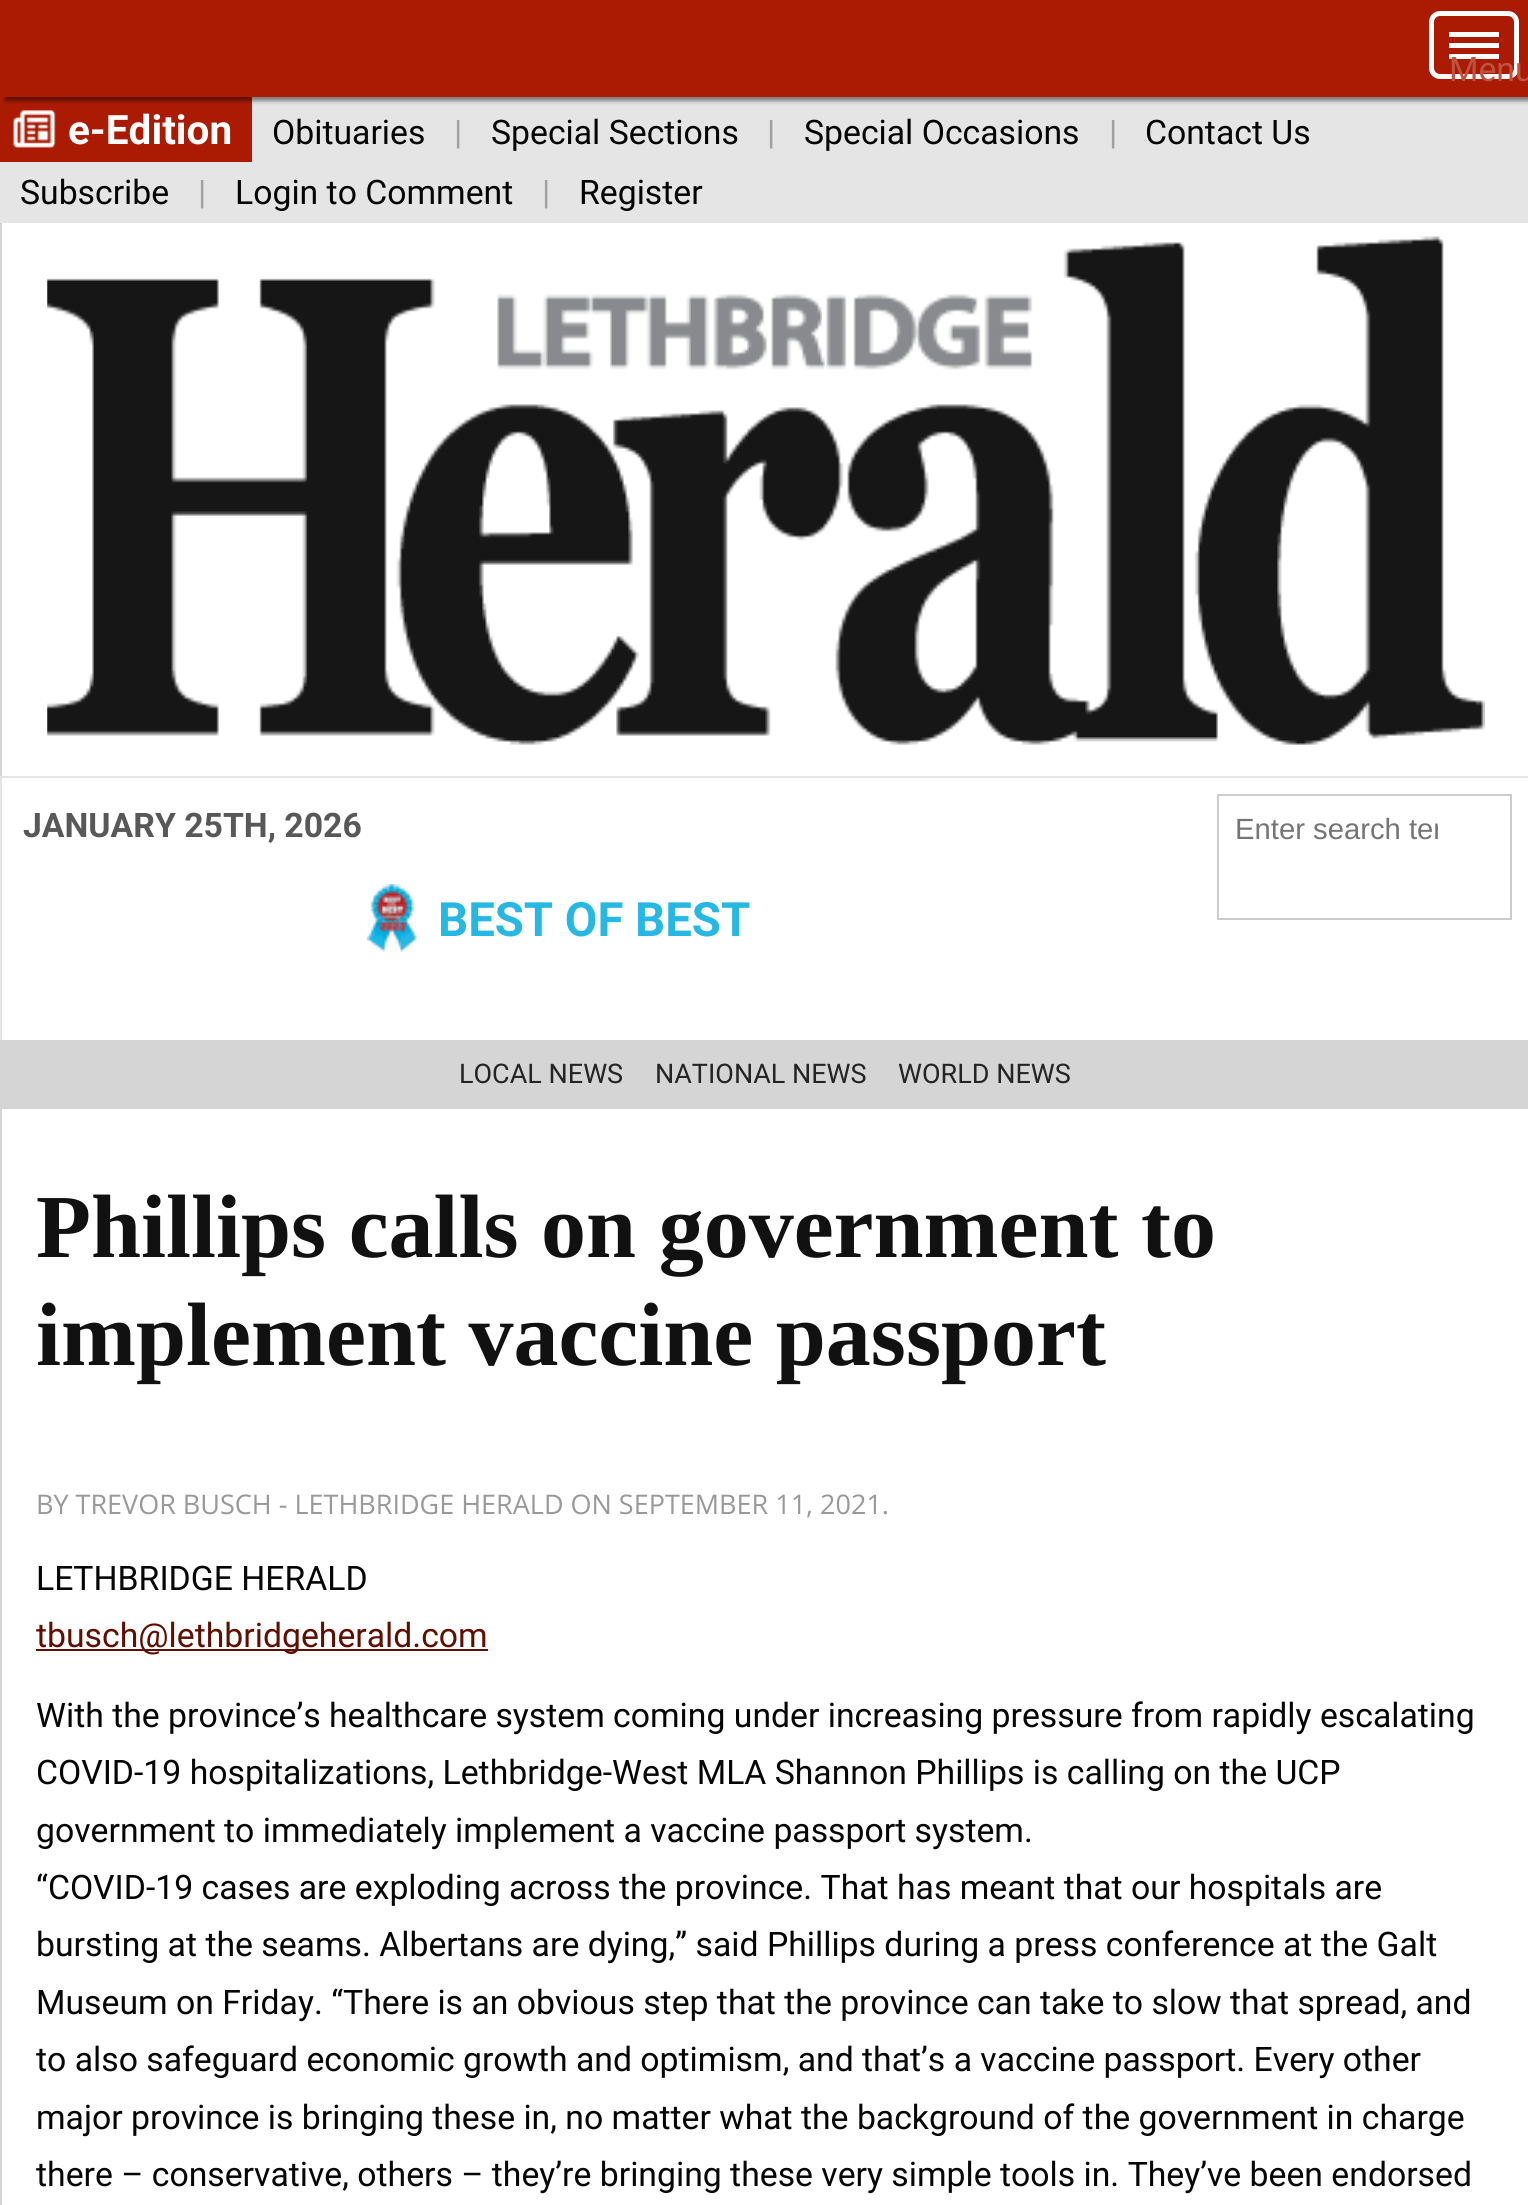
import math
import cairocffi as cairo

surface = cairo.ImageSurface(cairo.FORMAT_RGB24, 1528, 2205)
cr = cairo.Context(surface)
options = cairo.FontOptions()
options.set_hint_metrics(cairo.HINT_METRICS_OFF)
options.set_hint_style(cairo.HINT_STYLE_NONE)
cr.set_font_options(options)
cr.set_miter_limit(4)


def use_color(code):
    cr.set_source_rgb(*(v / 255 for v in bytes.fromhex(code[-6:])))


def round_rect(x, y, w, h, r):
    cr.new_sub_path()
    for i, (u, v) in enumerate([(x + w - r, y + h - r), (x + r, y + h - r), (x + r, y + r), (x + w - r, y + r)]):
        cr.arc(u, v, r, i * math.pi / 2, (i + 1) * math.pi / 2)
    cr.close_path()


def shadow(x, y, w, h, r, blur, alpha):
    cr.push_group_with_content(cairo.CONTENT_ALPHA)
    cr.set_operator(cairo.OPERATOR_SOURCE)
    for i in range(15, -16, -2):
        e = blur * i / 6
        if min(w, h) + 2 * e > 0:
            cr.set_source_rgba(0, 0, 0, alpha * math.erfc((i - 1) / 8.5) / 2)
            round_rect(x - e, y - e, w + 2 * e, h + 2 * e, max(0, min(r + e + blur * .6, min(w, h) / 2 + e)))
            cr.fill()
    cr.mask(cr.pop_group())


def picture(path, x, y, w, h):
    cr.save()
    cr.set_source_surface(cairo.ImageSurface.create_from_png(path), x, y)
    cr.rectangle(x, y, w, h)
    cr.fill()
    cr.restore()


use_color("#ffffff")
cr.paint()
use_color("#e5e5e5")
cr.rectangle(0, 97, 1528, 126)
cr.fill()
use_color("#ab1b04")
cr.rectangle(0, 97, 252, 65)
cr.fill()
use_color("#000000")
shadow(5, 5, 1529, 96, 0, 2, 0.45)
use_color("#ab1b04")
cr.rectangle(0, 0, 1528, 97)
cr.fill()
round_rect(1431.5, 13.5, 85, 63, 8.5)
use_color("#ffffff")
cr.set_line_width(5)
cr.stroke()
cr.rectangle(1449, 32, 50, 5)
cr.fill()
cr.rectangle(1449, 54, 50, 5)
cr.fill()
cr.rectangle(1449, 43, 50, 5)
cr.fill()
cr.select_font_face("Roboto")
cr.set_font_size(33.75)
use_color("#bf5241")
cr.move_to(1449, 81)
cr.show_text("Menu")
use_color("#d5d5d5")
cr.rectangle(0, 223, 2, 553)
cr.fill()
picture("img1.png", 47, 236, 1438, 509)
use_color("#e5e5e5")
cr.rectangle(0, 776, 1528, 2)
cr.fill()
cr.rectangle(0, 776, 2, 264)
cr.fill()
cr.select_font_face("Roboto", cairo.FONT_SLANT_NORMAL, cairo.FONT_WEIGHT_BOLD)
use_color("#585858")
cr.move_to(23, 837)
cr.show_text("JANUARY 25TH, 2026")
cr.rectangle(1218, 795, 293, 124)
use_color("#cccccc")
cr.set_line_width(2)
cr.stroke()
cr.save()
cr.rectangle(1235, 812, 203, 34)
cr.clip()
cr.select_font_face("Liberation Sans")
cr.set_font_size(29.25)
use_color("#757575")
cr.move_to(1235, 839)
cr.show_text("Enter search ter")
cr.restore()
picture("img2.png", 366, 884, 51, 68)
cr.set_font_size(47.25)
use_color("#27b7e3")
cr.move_to(438, 936)
cr.show_text("BEST OF BEST")
use_color("#d5d5d5")
cr.rectangle(0, 1040, 1528, 69)
cr.fill()
cr.select_font_face("Roboto")
cr.set_font_size(27)
use_color("#242424")
cr.move_to(459, 1083)
cr.show_text("LOCAL NEWS")
cr.move_to(655, 1083)
cr.show_text("NATIONAL NEWS")
cr.move_to(898, 1083)
cr.show_text("WORLD NEWS")
use_color("#d5d5d5")
cr.rectangle(0, 1109, 2, 1096)
cr.fill()
cr.select_font_face("Liberation Serif", cairo.FONT_SLANT_NORMAL, cairo.FONT_WEIGHT_BOLD)
cr.set_font_size(90)
use_color("#111111")
cr.move_to(36, 1257)
cr.show_text("Phillips calls on government to")
cr.move_to(36, 1365)
cr.show_text("implement vaccine passport")
cr.select_font_face("Open Sans")
cr.set_font_size(27)
use_color("#999999")
cr.move_to(36, 1514)
cr.show_text("BY TREVOR BUSCH - LETHBRIDGE HERALD ON SEPTEMBER 11, 2021.")
cr.select_font_face("Roboto")
cr.set_font_size(33.75)
use_color("#050505")
cr.move_to(36, 1590)
cr.show_text("LETHBRIDGE HERALD")
use_color("#5e0f02")
cr.rectangle(36, 1649, 452, 2)
cr.fill()
cr.move_to(36, 1647)
cr.show_text("tbusch@lethbridgeherald.com")
use_color("#050505")
cr.move_to(36, 1727)
cr.show_text("With the province’s healthcare system coming under increasing pressure from rapidly escalating")
cr.move_to(36, 1784)
cr.show_text("COVID-19 hospitalizations, Lethbridge-West MLA Shannon Phillips is calling on the UCP")
cr.move_to(36, 1842)
cr.show_text("government to immediately implement a vaccine passport system.")
cr.move_to(36, 1899)
cr.show_text("“COVID-19 cases are exploding across the province. That has meant that our hospitals are")
cr.move_to(36, 1956)
cr.show_text("bursting at the seams. Albertans are dying,” said Phillips during a press conference at the Galt")
cr.move_to(36, 2014)
cr.show_text("Museum on Friday. “There is an obvious step that the province can take to slow that spread, and")
cr.move_to(36, 2071)
cr.show_text("to also safeguard economic growth and optimism, and that’s a vaccine passport. Every other")
cr.move_to(36, 2129)
cr.show_text("major province is bringing these in, no matter what the background of the government in charge")
cr.move_to(36, 2186)
cr.show_text("there – conservative, others – they’re bringing these very simple tools in. They’ve been endorsed")
picture("img3.png", 13, 110, 43, 38)
cr.select_font_face("Roboto", cairo.FONT_SLANT_NORMAL, cairo.FONT_WEIGHT_BOLD)
cr.set_font_size(40.5)
use_color("#ffffff")
cr.move_to(68, 144)
cr.show_text("e-Edition")
cr.select_font_face("Roboto")
cr.set_font_size(33.75)
use_color("#050505")
cr.move_to(272, 144)
cr.show_text("Obituaries")
use_color("#a0a0a0")
cr.move_to(454, 144)
cr.show_text("|")
use_color("#050505")
cr.move_to(491, 144)
cr.show_text("Special Sections")
use_color("#a0a0a0")
cr.move_to(767, 144)
cr.show_text("|")
use_color("#050505")
cr.move_to(804, 144)
cr.show_text("Special Occasions")
use_color("#a0a0a0")
cr.move_to(1109, 144)
cr.show_text("|")
use_color("#050505")
cr.move_to(1145, 144)
cr.show_text("Contact Us")
cr.move_to(20, 204)
cr.show_text("Subscribe")
use_color("#a0a0a0")
cr.move_to(198, 204)
cr.show_text("|")
use_color("#050505")
cr.move_to(235, 204)
cr.show_text("Login to Comment")
use_color("#a0a0a0")
cr.move_to(542, 204)
cr.show_text("|")
use_color("#050505")
cr.move_to(579, 204)
cr.show_text("Register")
surface.write_to_png("result.png")
